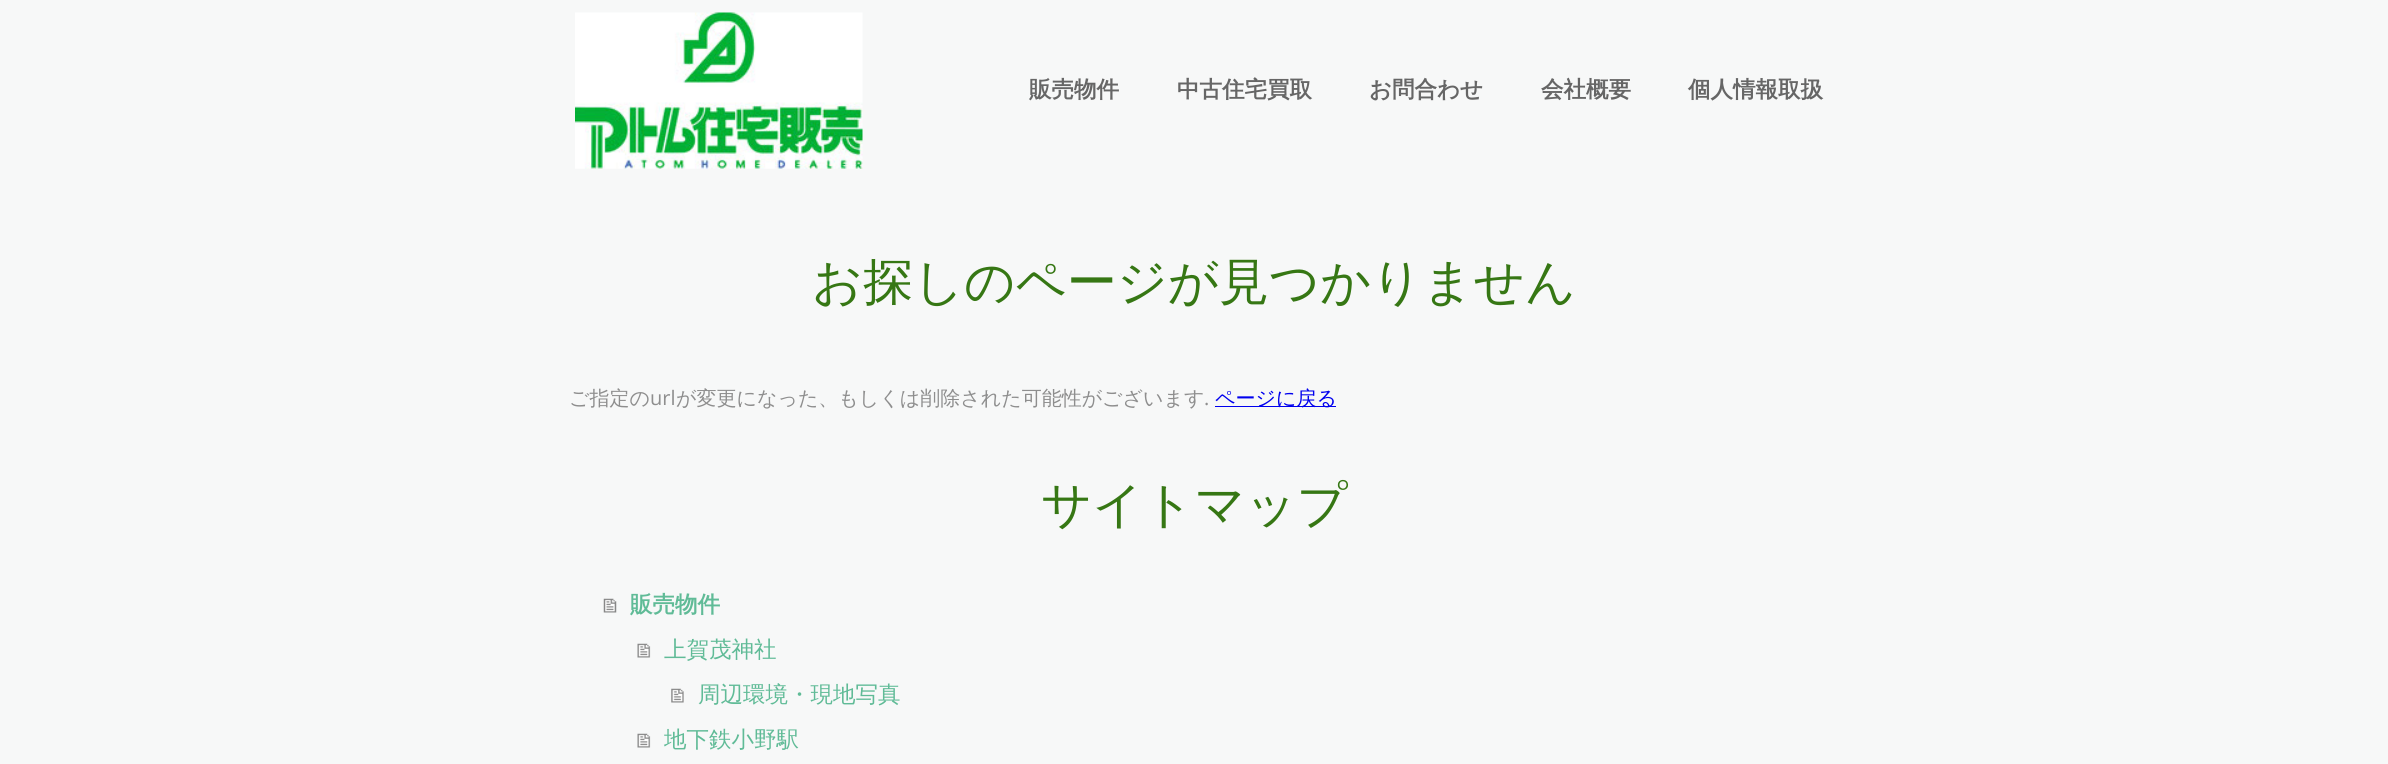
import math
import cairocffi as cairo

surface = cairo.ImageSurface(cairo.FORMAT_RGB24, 2388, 764)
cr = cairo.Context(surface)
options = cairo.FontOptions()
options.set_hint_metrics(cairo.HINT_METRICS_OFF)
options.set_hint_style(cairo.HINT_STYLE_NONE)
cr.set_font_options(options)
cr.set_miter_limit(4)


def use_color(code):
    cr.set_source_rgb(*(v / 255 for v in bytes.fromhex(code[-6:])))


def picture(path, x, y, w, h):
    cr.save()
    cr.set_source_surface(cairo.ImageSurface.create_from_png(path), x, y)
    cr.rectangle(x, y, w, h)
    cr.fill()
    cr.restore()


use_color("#f7f8f8")
cr.paint()
picture("img1.png", 575, 12, 288, 157)
cr.select_font_face("WenQuanYi Zen Hei", cairo.FONT_SLANT_NORMAL, cairo.FONT_WEIGHT_BOLD)
cr.set_font_size(22.5)
use_color("#666666")
cr.move_to(1029, 97)
cr.show_text("販売物件")
cr.move_to(1177, 97)
cr.show_text("中古住宅買取")
cr.move_to(1369, 97)
cr.show_text("お問合わせ")
cr.move_to(1541, 97)
cr.show_text("会社概要")
cr.move_to(1688, 97)
cr.show_text("個人情報取扱")
cr.select_font_face("WenQuanYi Zen Hei Medium")
cr.set_font_size(50)
use_color("#367714")
cr.move_to(812, 299)
cr.show_text("お探しのページが見つかりません")
cr.set_font_size(20)
use_color("#8e8e8e")
cr.move_to(569, 405)
cr.show_text("ご指定の")
cr.select_font_face("Open Sans")
cr.move_to(650, 405)
cr.show_text("url")
cr.select_font_face("WenQuanYi Zen Hei Medium")
cr.move_to(676, 405)
cr.show_text("が変更になった、もしくは削除された可能性がございます")
cr.select_font_face("Open Sans")
cr.move_to(1204, 405)
cr.show_text(".")
use_color("#0000ee")
cr.rectangle(1215, 406, 121, 1)
cr.fill()
cr.select_font_face("WenQuanYi Zen Hei Medium")
cr.move_to(1215, 405)
cr.show_text("ページに戻る")
cr.set_font_size(50)
use_color("#367714")
cr.move_to(1041, 522)
cr.show_text("サイトマップ")
picture("img2.png", 603, 598, 14, 15)
cr.select_font_face("WenQuanYi Zen Hei", cairo.FONT_SLANT_NORMAL, cairo.FONT_WEIGHT_BOLD)
cr.set_font_size(22.5)
use_color("#60bb97")
cr.move_to(630, 612)
cr.show_text("販売物件")
picture("img3.png", 637, 643, 14, 15)
cr.select_font_face("WenQuanYi Zen Hei Medium")
cr.move_to(664, 657)
cr.show_text("上賀茂神社")
picture("img4.png", 671, 688, 13, 15)
cr.move_to(698, 702)
cr.show_text("周辺環境・現地写真")
picture("img3.png", 637, 733, 14, 15)
cr.move_to(664, 747)
cr.show_text("地下鉄小野駅")
surface.write_to_png("result.png")
